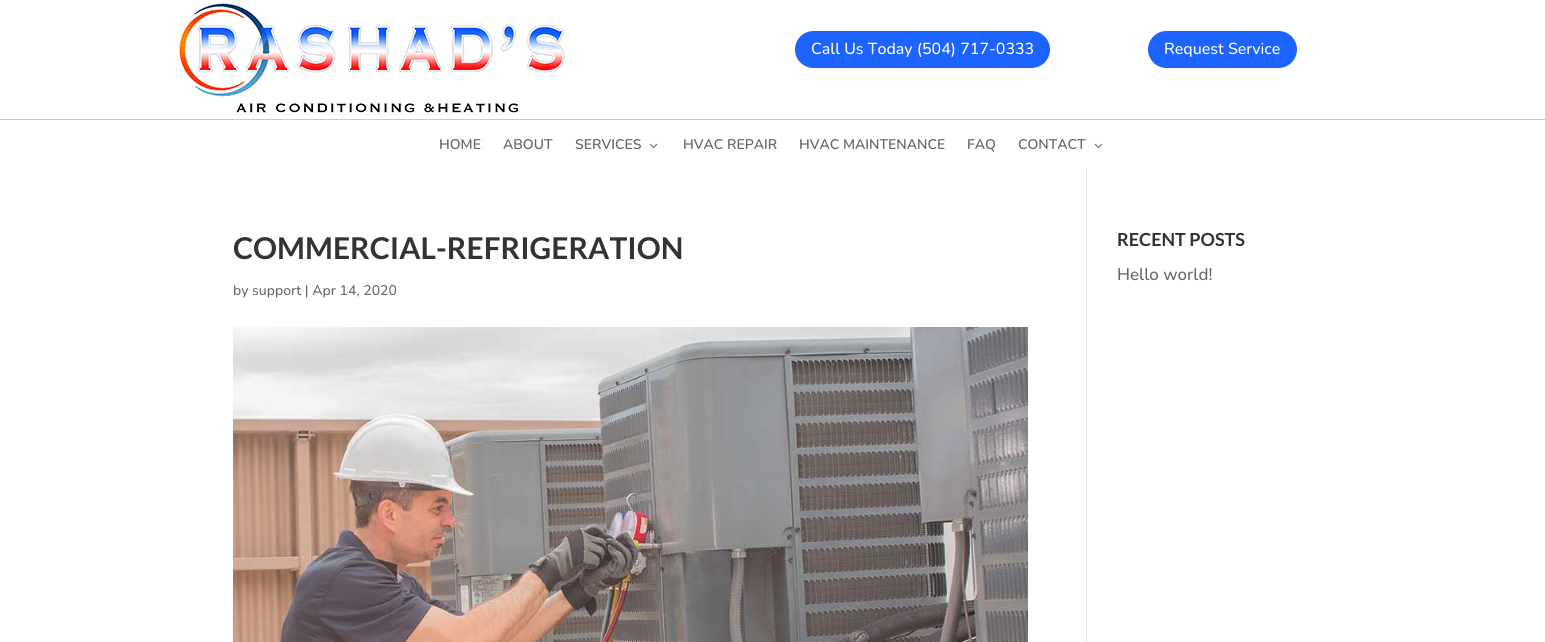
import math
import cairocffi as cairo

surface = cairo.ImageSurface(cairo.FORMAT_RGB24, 1545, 642)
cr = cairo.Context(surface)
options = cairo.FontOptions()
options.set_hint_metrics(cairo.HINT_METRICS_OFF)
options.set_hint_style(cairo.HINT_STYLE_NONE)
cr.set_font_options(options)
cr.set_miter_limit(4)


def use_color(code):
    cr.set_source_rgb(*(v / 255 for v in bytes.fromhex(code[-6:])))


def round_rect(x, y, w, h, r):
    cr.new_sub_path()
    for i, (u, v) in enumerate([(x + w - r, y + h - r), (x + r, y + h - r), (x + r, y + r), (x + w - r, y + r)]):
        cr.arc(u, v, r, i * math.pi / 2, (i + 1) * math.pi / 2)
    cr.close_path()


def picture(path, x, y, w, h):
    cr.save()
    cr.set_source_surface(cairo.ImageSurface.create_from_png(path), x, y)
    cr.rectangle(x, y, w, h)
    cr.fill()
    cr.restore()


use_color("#ffffff")
cr.paint()
use_color("#cacaca")
cr.rectangle(0, 119, 1545, 1)
cr.fill()
picture("img1.png", 179, 3, 386, 110)
use_color("#1d63ff")
round_rect(795, 31, 255, 37, 18.5)
cr.fill()
cr.select_font_face("Nunito ExtraLight")
cr.set_font_size(16)
use_color("#ffffff")
cr.move_to(811, 54)
cr.show_text("Call Us Today (504) 717-0333")
use_color("#1d63ff")
round_rect(1148, 31, 149, 37, 18.5)
cr.fill()
use_color("#ffffff")
cr.move_to(1164, 54)
cr.show_text("Request Service")
cr.select_font_face("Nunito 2 ExtraLight")
cr.set_font_size(14)
use_color("#666666")
cr.move_to(439, 149)
cr.show_text("HOME")
cr.move_to(503, 149)
cr.show_text("ABOUT")
cr.move_to(575, 149)
cr.show_text("SERVICES")
picture("img2.png", 649, 143, 9, 5)
cr.move_to(683, 149)
cr.show_text("HVAC REPAIR")
cr.move_to(799, 149)
cr.show_text("HVAC MAINTENANCE")
cr.move_to(967, 149)
cr.show_text("FAQ")
cr.move_to(1018, 149)
cr.show_text("CONTACT")
picture("img2.png", 1094, 143, 9, 5)
use_color("#e2e2e2")
cr.rectangle(1086, 170, 1, 472)
cr.fill()
cr.select_font_face("Lato", cairo.FONT_SLANT_NORMAL, cairo.FONT_WEIGHT_BOLD)
cr.set_font_size(30)
use_color("#333333")
cr.move_to(233, 259)
cr.show_text("COMMERCIAL-REFRIGERATION")
cr.select_font_face("Nunito ExtraLight")
cr.set_font_size(14)
use_color("#666666")
cr.move_to(233, 295)
cr.show_text("by support | Apr 14, 2020")
picture("img3.png", 233, 327, 795, 315)
cr.select_font_face("Lato", cairo.FONT_SLANT_NORMAL, cairo.FONT_WEIGHT_BOLD)
cr.set_font_size(18)
use_color("#333333")
cr.move_to(1117, 246)
cr.show_text("RECENT POSTS")
cr.select_font_face("Nunito ExtraLight")
cr.set_font_size(17)
use_color("#666666")
cr.move_to(1117, 280)
cr.show_text("Hello world!")
surface.write_to_png("result.png")
